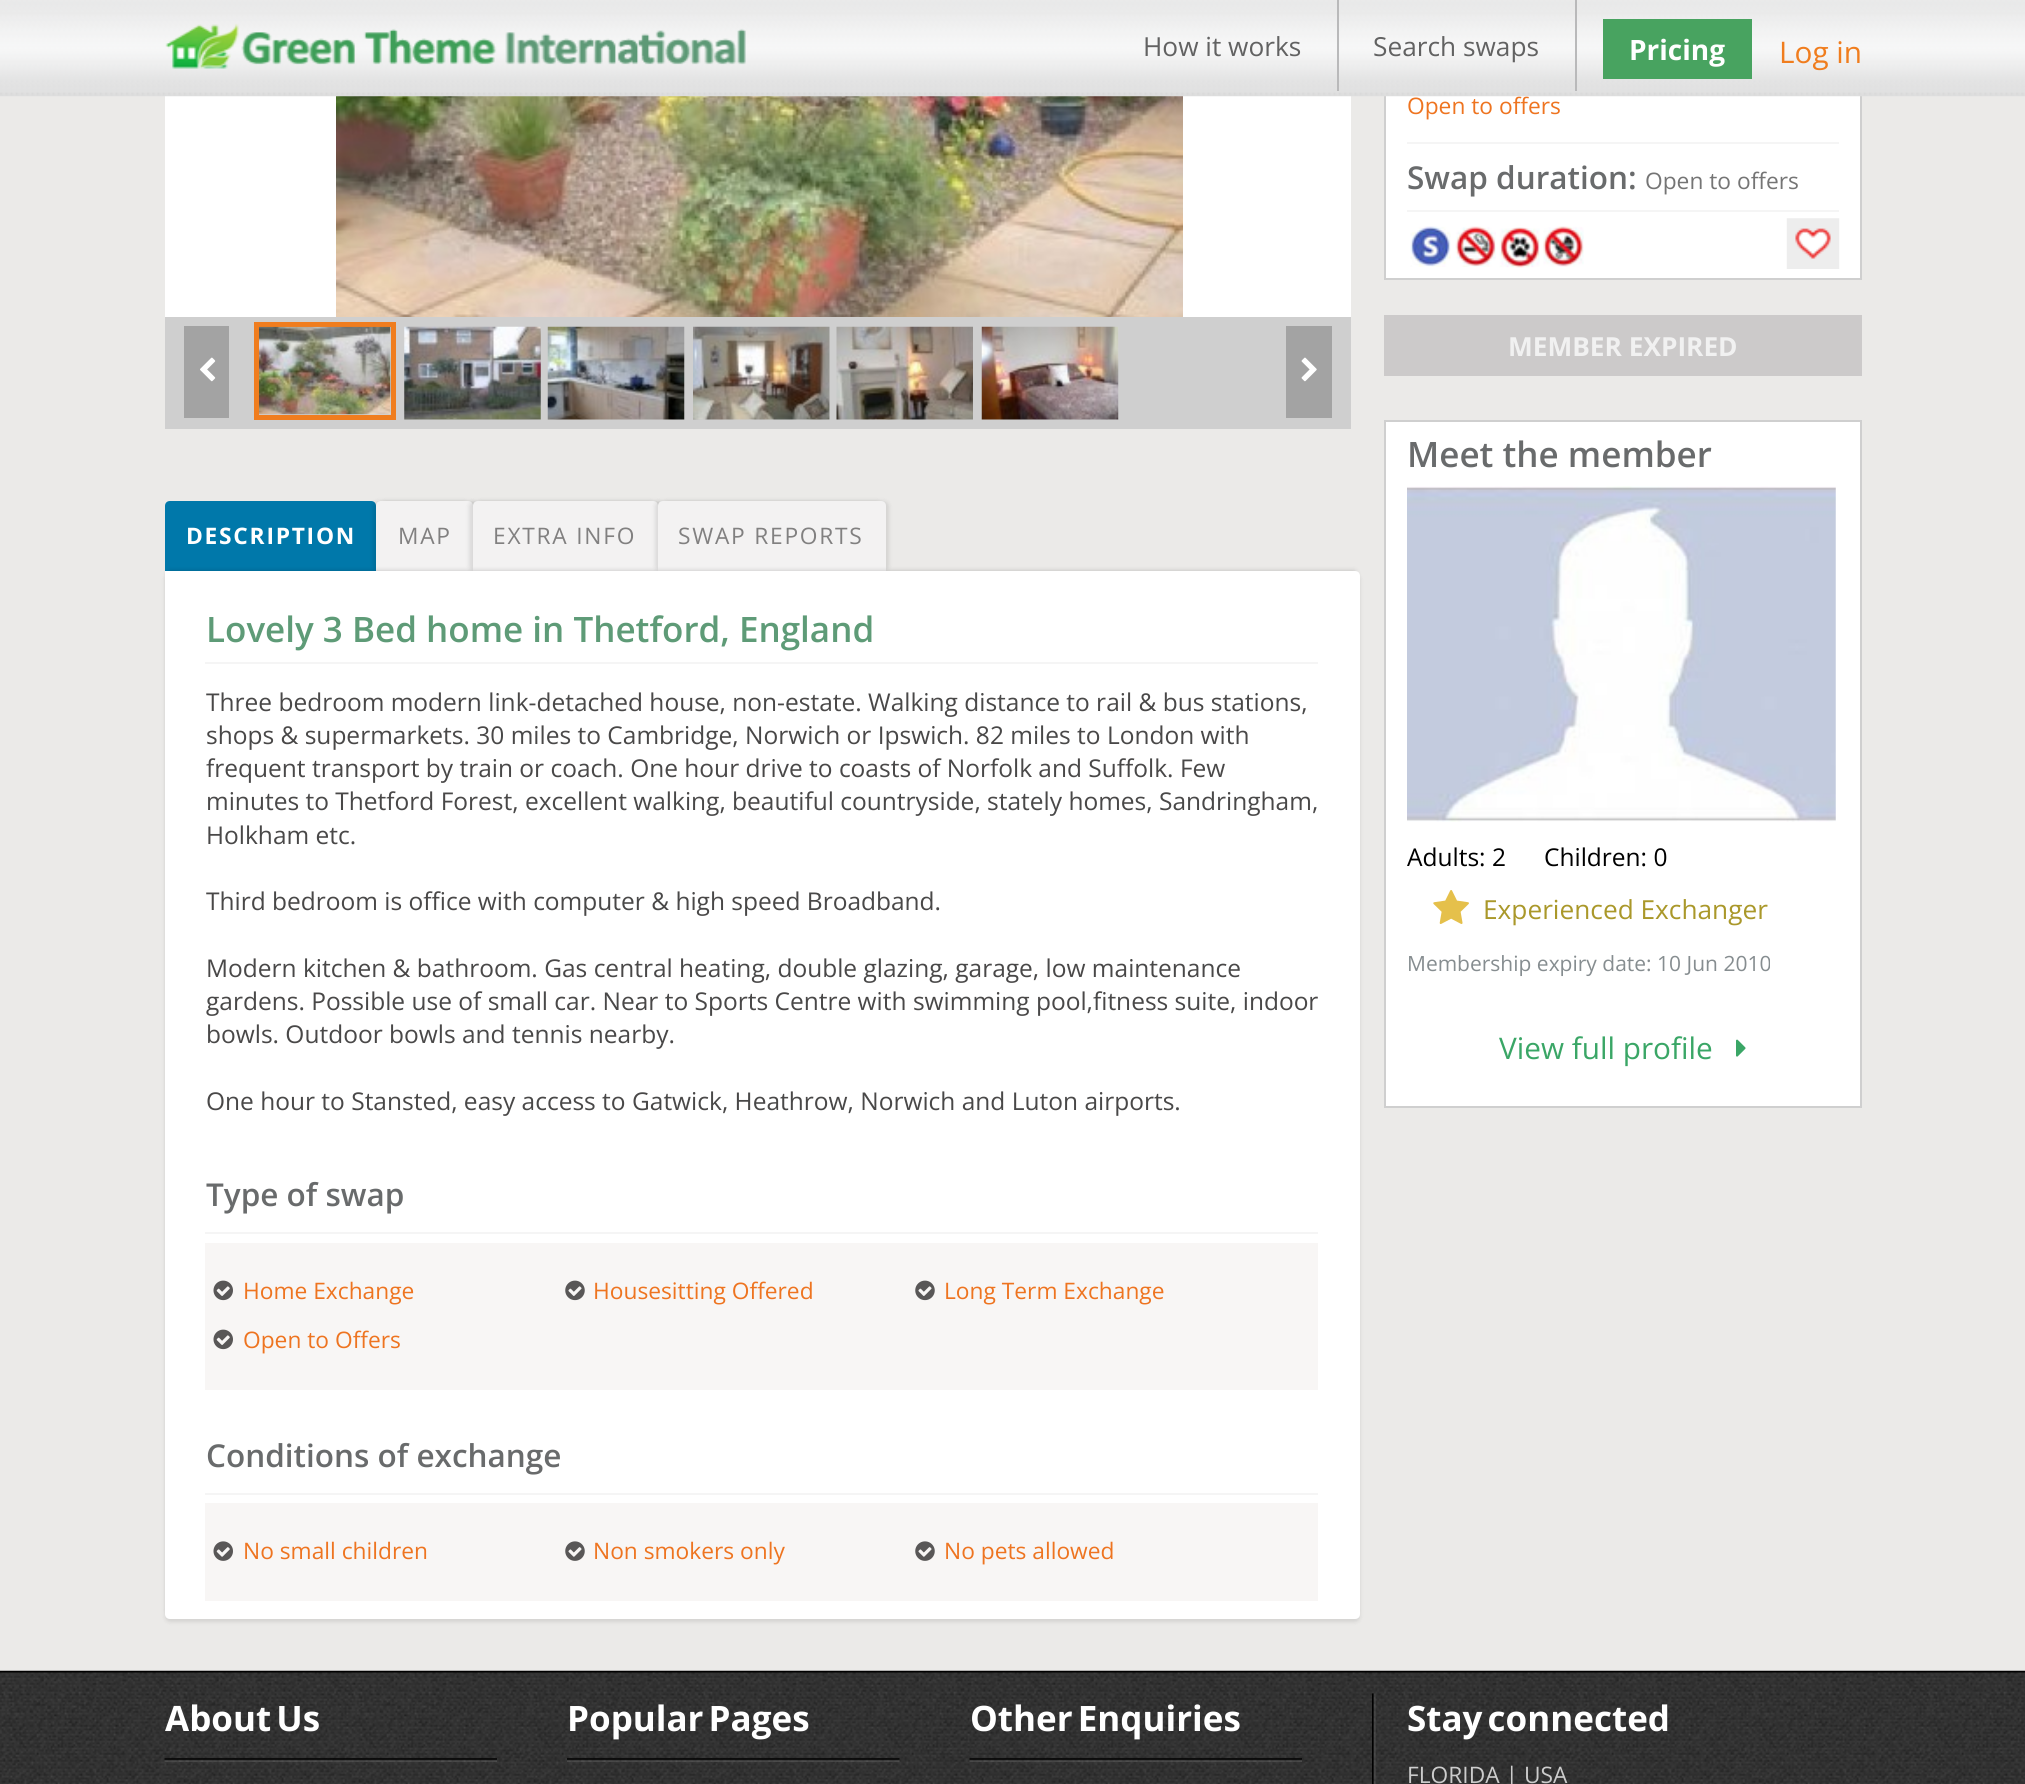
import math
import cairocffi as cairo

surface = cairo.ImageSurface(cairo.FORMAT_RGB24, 2025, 1784)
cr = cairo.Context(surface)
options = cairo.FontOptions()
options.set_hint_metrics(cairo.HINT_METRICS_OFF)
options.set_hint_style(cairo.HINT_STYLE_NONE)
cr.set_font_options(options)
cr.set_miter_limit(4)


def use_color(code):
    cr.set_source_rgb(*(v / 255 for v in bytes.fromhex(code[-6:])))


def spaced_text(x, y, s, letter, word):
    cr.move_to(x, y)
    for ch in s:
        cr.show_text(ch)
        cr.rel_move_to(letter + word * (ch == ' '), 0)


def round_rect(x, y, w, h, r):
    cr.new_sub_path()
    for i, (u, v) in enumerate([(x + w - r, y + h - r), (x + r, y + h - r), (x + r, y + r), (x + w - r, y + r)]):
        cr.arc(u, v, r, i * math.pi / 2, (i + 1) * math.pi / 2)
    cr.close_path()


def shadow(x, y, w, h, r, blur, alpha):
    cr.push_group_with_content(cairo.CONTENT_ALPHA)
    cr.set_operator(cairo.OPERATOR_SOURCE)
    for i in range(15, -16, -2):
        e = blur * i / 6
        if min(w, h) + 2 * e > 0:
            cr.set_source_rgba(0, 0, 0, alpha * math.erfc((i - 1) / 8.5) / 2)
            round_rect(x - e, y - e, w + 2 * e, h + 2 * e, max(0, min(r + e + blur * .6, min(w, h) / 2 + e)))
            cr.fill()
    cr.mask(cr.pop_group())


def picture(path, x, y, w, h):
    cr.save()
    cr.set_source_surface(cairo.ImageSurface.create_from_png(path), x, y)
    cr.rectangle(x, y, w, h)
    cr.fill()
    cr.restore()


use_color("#ebeae8")
cr.paint()
use_color("#ffffff")
cr.rectangle(165, 96, 1186, 221)
cr.fill()
picture("img3.png", 336, 96, 847, 221)
cr.rectangle(1386, 96, 474, 182)
cr.fill()
cr.rectangle(1385, -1, 476, 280)
use_color("#cfcfcf")
cr.stroke()
cr.select_font_face("Open Sans")
cr.set_font_size(22.75)
use_color("#ee7420")
cr.move_to(1407, 114)
cr.show_text("Open to offers")
picture("img1.png", 0, 0, 2025, 97)
picture("img2.png", 165, 23, 581, 46)
use_color("#b9b9ba")
cr.rectangle(1337, 0, 2, 91)
cr.fill()
cr.set_font_size(26.25)
use_color("#626262")
cr.move_to(1143, 56)
cr.show_text("How it works")
use_color("#b9b9ba")
cr.rectangle(1575, 0, 2, 91)
cr.fill()
use_color("#626262")
cr.move_to(1373, 56)
cr.show_text("Search swaps")
use_color("#48a360")
cr.rectangle(1603, 19, 149, 60)
cr.fill()
cr.select_font_face("Open Sans", cairo.FONT_SLANT_NORMAL, cairo.FONT_WEIGHT_BOLD)
cr.set_font_size(28)
use_color("#ffffff")
cr.move_to(1629, 60)
cr.show_text("Pricing")
cr.select_font_face("Open Sans")
cr.set_font_size(29.75)
use_color("#f07d1e")
cr.move_to(1779, 63)
cr.show_text("Log in")
use_color("#cfcfcf")
cr.rectangle(165, 317, 1186, 112)
cr.fill()
use_color("#a3a3a3")
cr.rectangle(184, 326, 45, 92)
cr.fill()
picture("img4.png", 200, 357, 16, 25)
cr.rectangle(256.5, 324.5, 137, 93)
use_color("#f07d1e")
cr.set_line_width(5)
cr.stroke()
picture("img5.png", 259, 326, 132, 89)
picture("img6.png", 404, 326, 137, 94)
picture("img7.png", 547, 326, 138, 94)
picture("img8.png", 693, 326, 137, 94)
picture("img9.png", 836, 326, 137, 94)
picture("img10.png", 981, 326, 138, 94)
use_color("#a3a3a3")
cr.rectangle(1286, 326, 46, 92)
cr.fill()
picture("img11.png", 1301, 357, 16, 25)
use_color("#0078aa")
cr.new_path()
cr.move_to(170, 501)
cr.line_to(371, 501)
cr.curve_to(374, 501, 376, 503, 376, 506)
cr.line_to(376, 571)
cr.line_to(165, 571)
cr.line_to(165, 506)
cr.curve_to(165, 503, 167, 501, 170, 501)
cr.close_path()
cr.fill()
cr.select_font_face("Open Sans", cairo.FONT_SLANT_NORMAL, cairo.FONT_WEIGHT_BOLD)
cr.set_font_size(22.75)
use_color("#ffffff")
spaced_text(186, 544, "DESCRIPTION", 1.75, 0)
use_color("#000000")
shadow(373, 501, 96, 70, 5, 2, 0.1)
shadow(380, 501, 96, 70, 5, 2, 0.1)
use_color("#f3f2f2")
cr.new_path()
cr.move_to(381, 501)
cr.line_to(468, 501)
cr.curve_to(471, 501, 473, 503, 473, 506)
cr.line_to(473, 571)
cr.line_to(376, 571)
cr.line_to(376, 506)
cr.curve_to(376, 503, 378, 501, 381, 501)
cr.close_path()
cr.fill()
cr.select_font_face("Open Sans")
use_color("#818080")
spaced_text(398, 544, "MAP", 1.75, 0)
use_color("#000000")
shadow(469, 501, 186, 70, 5, 2, 0.1)
shadow(476, 501, 186, 70, 5, 2, 0.1)
use_color("#f3f2f2")
cr.new_path()
cr.move_to(478, 501)
cr.line_to(653, 501)
cr.curve_to(656, 501, 658, 503, 658, 506)
cr.line_to(658, 571)
cr.line_to(473, 571)
cr.line_to(473, 506)
cr.curve_to(473, 503, 475, 501, 478, 501)
cr.close_path()
cr.fill()
use_color("#818080")
spaced_text(493, 544, "EXTRA INFO", 1.75, 0)
use_color("#000000")
shadow(655, 501, 227, 70, 5, 2, 0.1)
shadow(662, 501, 227, 70, 5, 2, 0.1)
use_color("#f3f2f2")
cr.new_path()
cr.move_to(663, 501)
cr.line_to(881, 501)
cr.curve_to(884, 501, 886, 503, 886, 506)
cr.line_to(886, 571)
cr.line_to(658, 571)
cr.line_to(658, 506)
cr.curve_to(658, 503, 660, 501, 663, 501)
cr.close_path()
cr.fill()
use_color("#818080")
spaced_text(678, 544, "SWAP REPORTS", 1.75, 0)
use_color("#000000")
shadow(165, 574, 1195, 1048, 5, 2, 0.1)
shadow(168, 571, 1188, 1041, 2, 2.5, 0.2)
use_color("#ffffff")
cr.new_path()
cr.move_to(165, 571)
cr.line_to(1355, 571)
cr.curve_to(1358, 571, 1360, 573, 1360, 576)
cr.line_to(1360, 1614)
cr.curve_to(1360, 1617, 1358, 1619, 1355, 1619)
cr.line_to(170, 1619)
cr.curve_to(167, 1619, 165, 1617, 165, 1614)
cr.close_path()
cr.fill()
cr.select_font_face("Open Sans SemiBold")
cr.set_font_size(35)
use_color("#5e9b77")
cr.move_to(206, 642)
cr.show_text("Lovely 3 Bed home in Thetford, England")
use_color("#f5f5f5")
cr.rectangle(205, 662, 1113, 2)
cr.fill()
cr.select_font_face("Open Sans")
cr.set_font_size(24.5)
use_color("#494848")
cr.move_to(206, 711)
cr.show_text("Three bedroom modern link-detached house, non-estate. Walking distance to rail & bus stations,")
cr.move_to(206, 744)
cr.show_text("shops & supermarkets. 30 miles to Cambridge, Norwich or Ipswich. 82 miles to London with")
cr.move_to(206, 777)
cr.show_text("frequent transport by train or coach. One hour drive to coasts of Norfolk and Suffolk. Few")
cr.move_to(206, 810)
cr.show_text("minutes to Thetford Forest, excellent walking, beautiful countryside, stately homes, Sandringham,")
cr.move_to(206, 844)
cr.show_text("Holkham etc.")
cr.move_to(206, 910)
cr.show_text("Third bedroom is office with computer & high speed Broadband.")
cr.move_to(206, 977)
cr.show_text("Modern kitchen & bathroom. Gas central heating, double glazing, garage, low maintenance")
cr.move_to(206, 1010)
cr.show_text("gardens. Possible use of small car. Near to Sports Centre with swimming pool,fitness suite, indoor")
cr.move_to(206, 1043)
cr.show_text("bowls. Outdoor bowls and tennis nearby.")
cr.move_to(206, 1110)
cr.show_text("One hour to Stansted, easy access to Gatwick, Heathrow, Norwich and Luton airports.")
cr.select_font_face("Open Sans SemiBold")
cr.set_font_size(31.5)
use_color("#696b6c")
cr.move_to(206, 1206)
cr.show_text("Type of swap")
use_color("#f5f5f5")
cr.rectangle(205, 1232, 1113, 2)
cr.fill()
use_color("#f8f6f5")
cr.rectangle(205, 1243, 1113, 147)
cr.fill()
picture("img12.png", 213, 1280, 20, 21)
cr.select_font_face("Open Sans")
cr.set_font_size(22.75)
use_color("#ee7420")
cr.move_to(243, 1299)
cr.show_text("Home Exchange")
picture("img13.png", 565, 1280, 20, 21)
cr.move_to(593, 1299)
cr.show_text("Housesitting Offered")
picture("img14.png", 915, 1280, 20, 21)
cr.move_to(944, 1299)
cr.show_text("Long Term Exchange")
picture("img12.png", 213, 1329, 20, 21)
cr.move_to(243, 1348)
cr.show_text("Open to Offers")
cr.select_font_face("Open Sans SemiBold")
cr.set_font_size(31.5)
use_color("#696b6c")
cr.move_to(206, 1467)
cr.show_text("Conditions of exchange")
use_color("#f5f5f5")
cr.rectangle(205, 1493, 1113, 2)
cr.fill()
use_color("#f8f6f5")
cr.rectangle(205, 1503, 1113, 98)
cr.fill()
picture("img15.png", 213, 1541, 20, 20)
cr.select_font_face("Open Sans")
cr.set_font_size(22.75)
use_color("#ee7420")
cr.move_to(243, 1559)
cr.show_text("No small children")
picture("img16.png", 565, 1541, 20, 20)
cr.move_to(593, 1559)
cr.show_text("Non smokers only")
picture("img17.png", 915, 1541, 20, 20)
cr.move_to(944, 1559)
cr.show_text("No pets allowed")
use_color("#f5f5f5")
cr.rectangle(1407, 142, 432, 2)
cr.fill()
cr.select_font_face("Open Sans SemiBold")
cr.set_font_size(31.5)
use_color("#696b6c")
cr.move_to(1407, 189)
cr.show_text("Swap duration:")
cr.select_font_face("Open Sans")
cr.set_font_size(22.75)
use_color("#757575")
cr.move_to(1645, 189)
cr.show_text("Open to offers")
use_color("#f5f5f5")
cr.rectangle(1407, 210, 432, 2)
cr.fill()
picture("img18.png", 1410, 226, 41, 41)
picture("img19.png", 1455, 226, 41, 41)
picture("img20.png", 1499, 227, 41, 41)
picture("img21.png", 1543, 226, 41, 41)
picture("img22.png", 1786, 218, 54, 51)
use_color("#cccaca")
cr.rectangle(1384, 315, 478, 61)
cr.fill()
cr.select_font_face("Open Sans", cairo.FONT_SLANT_NORMAL, cairo.FONT_WEIGHT_BOLD)
cr.set_font_size(26.25)
use_color("#f1f1f1")
cr.move_to(1508, 356)
cr.show_text("MEMBER EXPIRED")
use_color("#ffffff")
cr.rectangle(1385, 421, 476, 686)
cr.fill_preserve()
use_color("#cfcfcf")
cr.set_line_width(2)
cr.stroke()
cr.select_font_face("Open Sans SemiBold")
cr.set_font_size(35)
use_color("#696b6c")
cr.move_to(1407, 467)
cr.show_text("Meet the member")
picture("img23.png", 1407, 486, 429, 336)
cr.select_font_face("Open Sans")
cr.set_font_size(24.5)
use_color("#000000")
cr.move_to(1407, 866)
cr.show_text("Adults: 2")
cr.move_to(1544, 866)
cr.show_text("Children: 0")
picture("img24.png", 1433, 890, 36, 34)
cr.set_font_size(26.25)
use_color("#aa982a")
cr.move_to(1483, 919)
cr.show_text("Experienced Exchanger")
cr.set_font_size(21)
use_color("#868d90")
cr.move_to(1407, 971)
cr.show_text("Membership expiry date: 10 Jun 2010")
cr.set_font_size(29.75)
use_color("#3aa666")
cr.move_to(1499, 1059)
cr.show_text("View full profile")
picture("img25.png", 1736, 1039, 10, 18)
picture("img26.png", 0, 1670, 2025, 114)
cr.select_font_face("Open Sans", cairo.FONT_SLANT_NORMAL, cairo.FONT_WEIGHT_BOLD)
cr.set_font_size(35)
use_color("#ffffff")
spaced_text(165, 1731, "About Us", 0, -4)
picture("img27.png", 164, 1758, 333, 4)
spaced_text(567, 1731, "Popular Pages", 0, -4)
picture("img28.png", 567, 1758, 333, 4)
spaced_text(970, 1731, "Other Enquiries", 0, -4)
picture("img29.png", 969, 1758, 333, 4)
picture("img30.png", 1372, 1693, 4, 91)
spaced_text(1407, 1731, "Stay connected", 0, -4)
cr.select_font_face("Open Sans")
cr.set_font_size(22.75)
use_color("#cccccc")
cr.move_to(1407, 1783)
cr.show_text("FLORIDA | USA")
surface.write_to_png("result.png")
